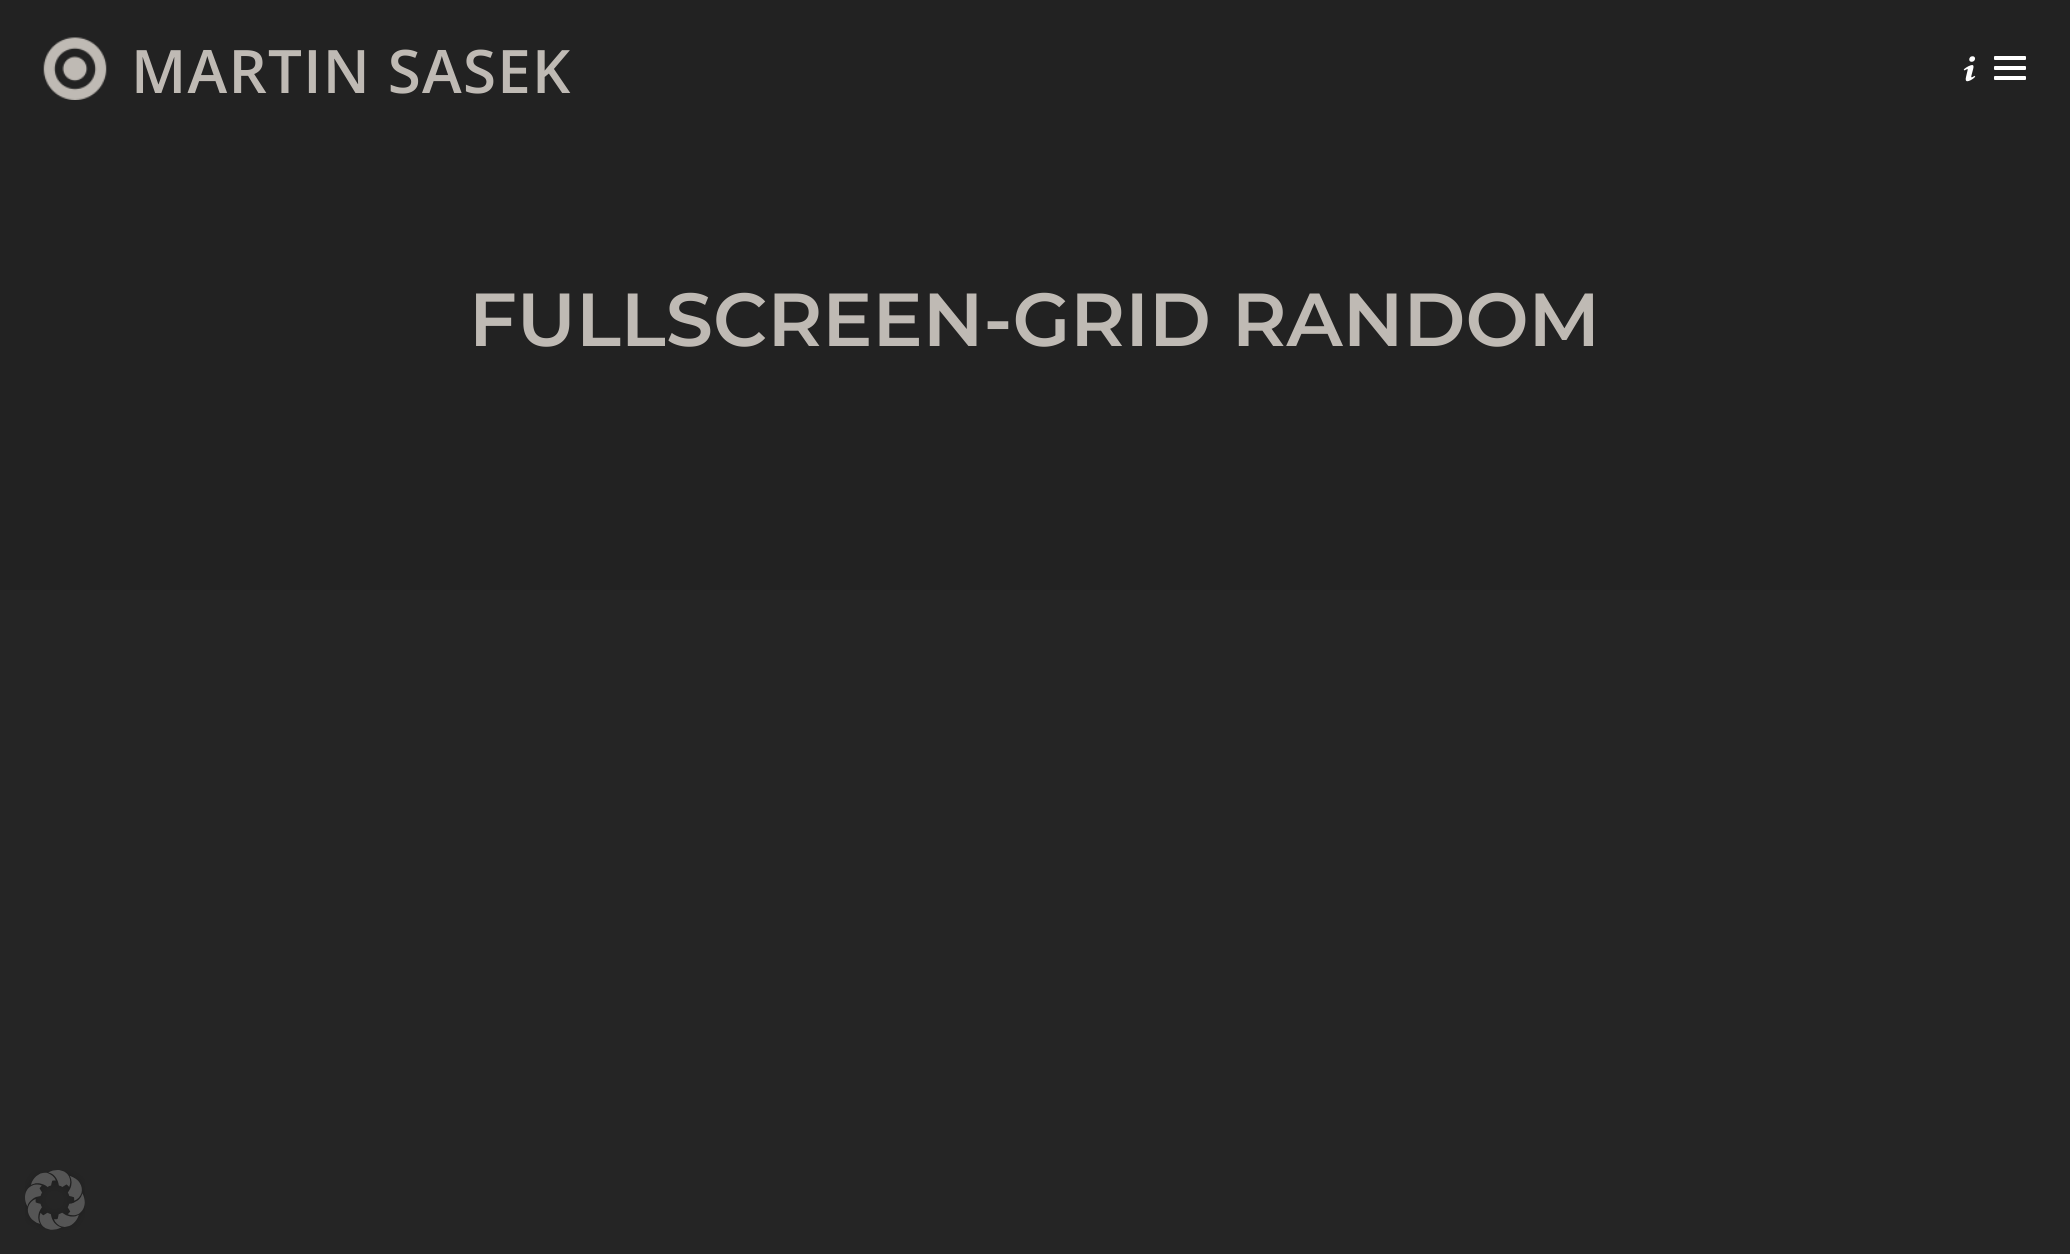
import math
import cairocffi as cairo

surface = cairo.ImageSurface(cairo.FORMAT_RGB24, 2070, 1254)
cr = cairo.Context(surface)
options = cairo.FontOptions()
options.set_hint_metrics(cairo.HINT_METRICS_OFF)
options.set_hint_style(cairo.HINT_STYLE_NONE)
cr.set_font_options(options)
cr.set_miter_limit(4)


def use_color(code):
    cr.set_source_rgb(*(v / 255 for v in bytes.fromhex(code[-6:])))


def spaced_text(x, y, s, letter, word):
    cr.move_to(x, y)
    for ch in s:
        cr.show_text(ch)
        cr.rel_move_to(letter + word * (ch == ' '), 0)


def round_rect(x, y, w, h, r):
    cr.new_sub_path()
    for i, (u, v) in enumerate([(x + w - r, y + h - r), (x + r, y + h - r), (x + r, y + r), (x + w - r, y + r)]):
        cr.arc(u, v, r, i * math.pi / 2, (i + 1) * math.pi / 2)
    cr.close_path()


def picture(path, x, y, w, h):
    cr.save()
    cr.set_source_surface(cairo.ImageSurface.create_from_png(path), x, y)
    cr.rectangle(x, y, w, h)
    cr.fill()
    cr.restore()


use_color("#222222")
cr.paint()
picture("img1.png", 43, 37, 64, 63)
cr.select_font_face("Open Sans SemiBold")
cr.set_font_size(60)
use_color("#bfbab4")
spaced_text(131, 93, "MARTIN SASEK", 1.25, 0)
picture("img2.png", 1963, 56, 13, 26)
use_color("#ffffff")
round_rect(1994, 66, 32, 4, 1)
cr.fill()
round_rect(1994, 56, 32, 4, 1)
cr.fill()
round_rect(1994, 76, 32, 4, 1)
cr.fill()
cr.select_font_face("Montserrat SemiBold")
cr.set_font_size(75)
use_color("#bfbab4")
cr.move_to(469, 346)
cr.show_text("FULLSCREEN-GRID RANDOM")
use_color("#252525")
cr.rectangle(0, 590, 2070, 664)
cr.fill()
picture("img3.png", 25, 1170, 60, 60)
surface.write_to_png("result.png")
